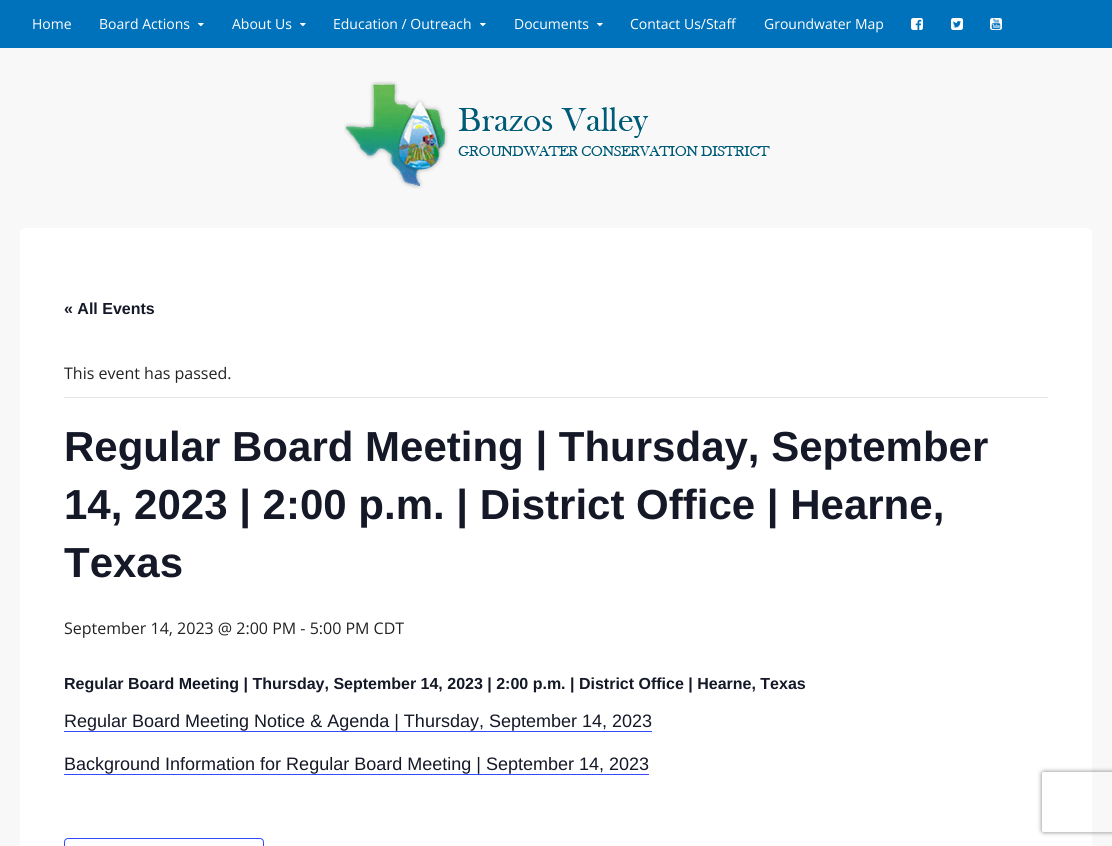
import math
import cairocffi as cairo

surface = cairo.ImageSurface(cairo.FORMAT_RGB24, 1112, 846)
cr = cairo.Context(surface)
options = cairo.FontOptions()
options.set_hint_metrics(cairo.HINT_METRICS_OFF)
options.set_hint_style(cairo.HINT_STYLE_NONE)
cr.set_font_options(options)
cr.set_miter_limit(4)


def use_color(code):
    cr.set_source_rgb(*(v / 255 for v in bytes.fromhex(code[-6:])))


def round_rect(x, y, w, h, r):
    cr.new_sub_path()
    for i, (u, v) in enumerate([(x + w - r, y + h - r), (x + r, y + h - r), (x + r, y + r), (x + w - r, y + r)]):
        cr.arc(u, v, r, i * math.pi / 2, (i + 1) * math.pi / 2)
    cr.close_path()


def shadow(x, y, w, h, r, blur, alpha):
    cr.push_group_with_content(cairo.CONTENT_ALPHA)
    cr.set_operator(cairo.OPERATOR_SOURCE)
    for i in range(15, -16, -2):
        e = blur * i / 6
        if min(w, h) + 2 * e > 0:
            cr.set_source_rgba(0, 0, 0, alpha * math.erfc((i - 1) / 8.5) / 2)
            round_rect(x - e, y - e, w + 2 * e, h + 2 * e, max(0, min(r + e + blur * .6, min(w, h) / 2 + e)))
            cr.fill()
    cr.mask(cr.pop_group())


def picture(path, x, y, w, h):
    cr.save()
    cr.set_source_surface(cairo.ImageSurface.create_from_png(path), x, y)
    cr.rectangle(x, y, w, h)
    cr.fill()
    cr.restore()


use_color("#f8f8f8")
cr.paint()
use_color("#0072bc")
cr.rectangle(0, 0, 1112, 48)
cr.fill()
cr.select_font_face("Open Sans")
cr.set_font_size(14)
use_color("#ffffff")
cr.move_to(32, 29)
cr.show_text("Home")
cr.move_to(99, 29)
cr.show_text("Board Actions")
picture("img1.png", 198, 23, 6, 4)
cr.move_to(232, 29)
cr.show_text("About Us")
picture("img1.png", 300, 23, 6, 4)
cr.move_to(333, 29)
cr.show_text("Education / Outreach")
picture("img1.png", 480, 23, 6, 4)
cr.move_to(514, 29)
cr.show_text("Documents")
picture("img1.png", 597, 23, 6, 4)
cr.move_to(630, 29)
cr.show_text("Contact Us/Staff")
cr.move_to(764, 29)
cr.show_text("Groundwater Map")
picture("img2.png", 911, 18, 12, 12)
picture("img3.png", 951, 18, 12, 12)
picture("img4.png", 990, 18, 12, 12)
picture("img5.png", 344, 81, 426, 108)
round_rect(20, 228, 1072, 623, 5)
cr.fill()
cr.select_font_face("Liberation Sans", cairo.FONT_SLANT_NORMAL, cairo.FONT_WEIGHT_BOLD)
cr.set_font_size(16)
use_color("#141827")
cr.move_to(64, 314)
cr.show_text("« All Events")
use_color("#e4e4e4")
cr.rectangle(64, 397, 984, 1)
cr.fill()
cr.select_font_face("Open Sans")
use_color("#222222")
cr.move_to(64, 379)
cr.show_text("This event has passed.")
cr.select_font_face("Liberation Sans", cairo.FONT_SLANT_NORMAL, cairo.FONT_WEIGHT_BOLD)
cr.set_font_size(42)
use_color("#141827")
cr.move_to(64, 461)
cr.show_text("Regular Board Meeting | Thursday, September")
cr.move_to(64, 519)
cr.show_text("14, 2023 | 2:00 p.m. | District Office | Hearne,")
cr.move_to(64, 577)
cr.show_text("Texas")
cr.select_font_face("Open Sans")
cr.set_font_size(16)
use_color("#222222")
cr.move_to(64, 634)
cr.show_text("September 14, 2023 @ 2:00 PM - 5:00 PM CDT")
cr.select_font_face("Liberation Sans", cairo.FONT_SLANT_NORMAL, cairo.FONT_WEIGHT_BOLD)
use_color("#141827")
cr.move_to(64, 689)
cr.show_text("Regular Board Meeting | Thursday, September 14, 2023 | 2:00 p.m. | District Office | Hearne, Texas")
cr.select_font_face("Liberation Sans")
cr.set_font_size(18)
cr.move_to(64, 727)
cr.show_text("Regular Board Meeting Notice & Agenda | Thursday, September 14, 2023")
use_color("#334aff")
cr.rectangle(64, 731, 588, 1)
cr.fill()
use_color("#141827")
cr.move_to(64, 770)
cr.show_text("Background Information for Regular Board Meeting | September 14, 2023")
use_color("#334aff")
cr.rectangle(64, 774, 585, 1)
cr.fill()
round_rect(64.5, 838.5, 199, 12, 3.5)
cr.set_line_width(1)
cr.stroke()
cr.save()
cr.set_fill_rule(cairo.FILL_RULE_EVEN_ODD)
cr.new_path()
cr.move_to(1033, 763)
cr.line_to(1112, 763)
cr.line_to(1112, 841)
cr.line_to(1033, 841)
cr.close_path()
cr.move_to(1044, 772)
cr.line_to(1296, 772)
cr.curve_to(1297, 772, 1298, 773, 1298, 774)
cr.line_to(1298, 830)
cr.curve_to(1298, 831, 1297, 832, 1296, 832)
cr.line_to(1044, 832)
cr.curve_to(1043, 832, 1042, 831, 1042, 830)
cr.line_to(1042, 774)
cr.curve_to(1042, 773, 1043, 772, 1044, 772)
cr.close_path()
cr.clip()
use_color("#808080")
shadow(1042, 772, 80, 60, 2, 2.5, 1)
cr.restore()
surface.write_to_png("result.png")
